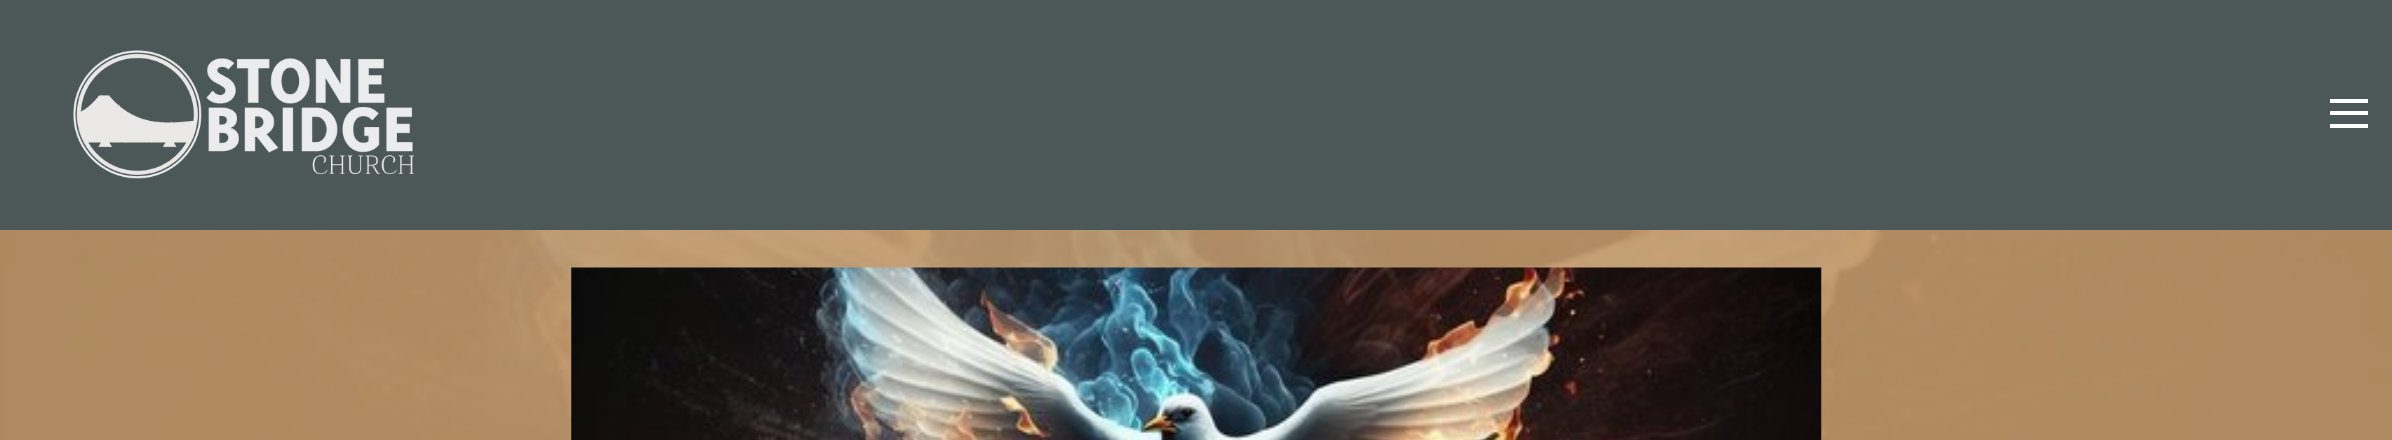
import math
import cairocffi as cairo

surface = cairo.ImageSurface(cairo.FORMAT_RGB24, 2392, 440)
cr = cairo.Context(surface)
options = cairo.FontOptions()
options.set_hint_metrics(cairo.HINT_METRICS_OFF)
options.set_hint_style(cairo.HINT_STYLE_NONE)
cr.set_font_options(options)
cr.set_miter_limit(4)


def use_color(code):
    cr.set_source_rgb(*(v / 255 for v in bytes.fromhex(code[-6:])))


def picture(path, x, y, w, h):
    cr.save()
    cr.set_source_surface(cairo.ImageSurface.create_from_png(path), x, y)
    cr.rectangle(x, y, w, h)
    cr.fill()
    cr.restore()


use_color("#4c5758")
cr.paint()
picture("img1.png", 73, 50, 341, 129)
use_color("#ffffff")
cr.rectangle(2330, 99, 38, 4)
cr.fill()
cr.rectangle(2330, 111, 38, 4)
cr.fill()
cr.rectangle(2330, 124, 38, 4)
cr.fill()
picture("img2.png", 0, 230, 2392, 210)
picture("img3.png", 571, 267, 1251, 173)
surface.write_to_png("result.png")
